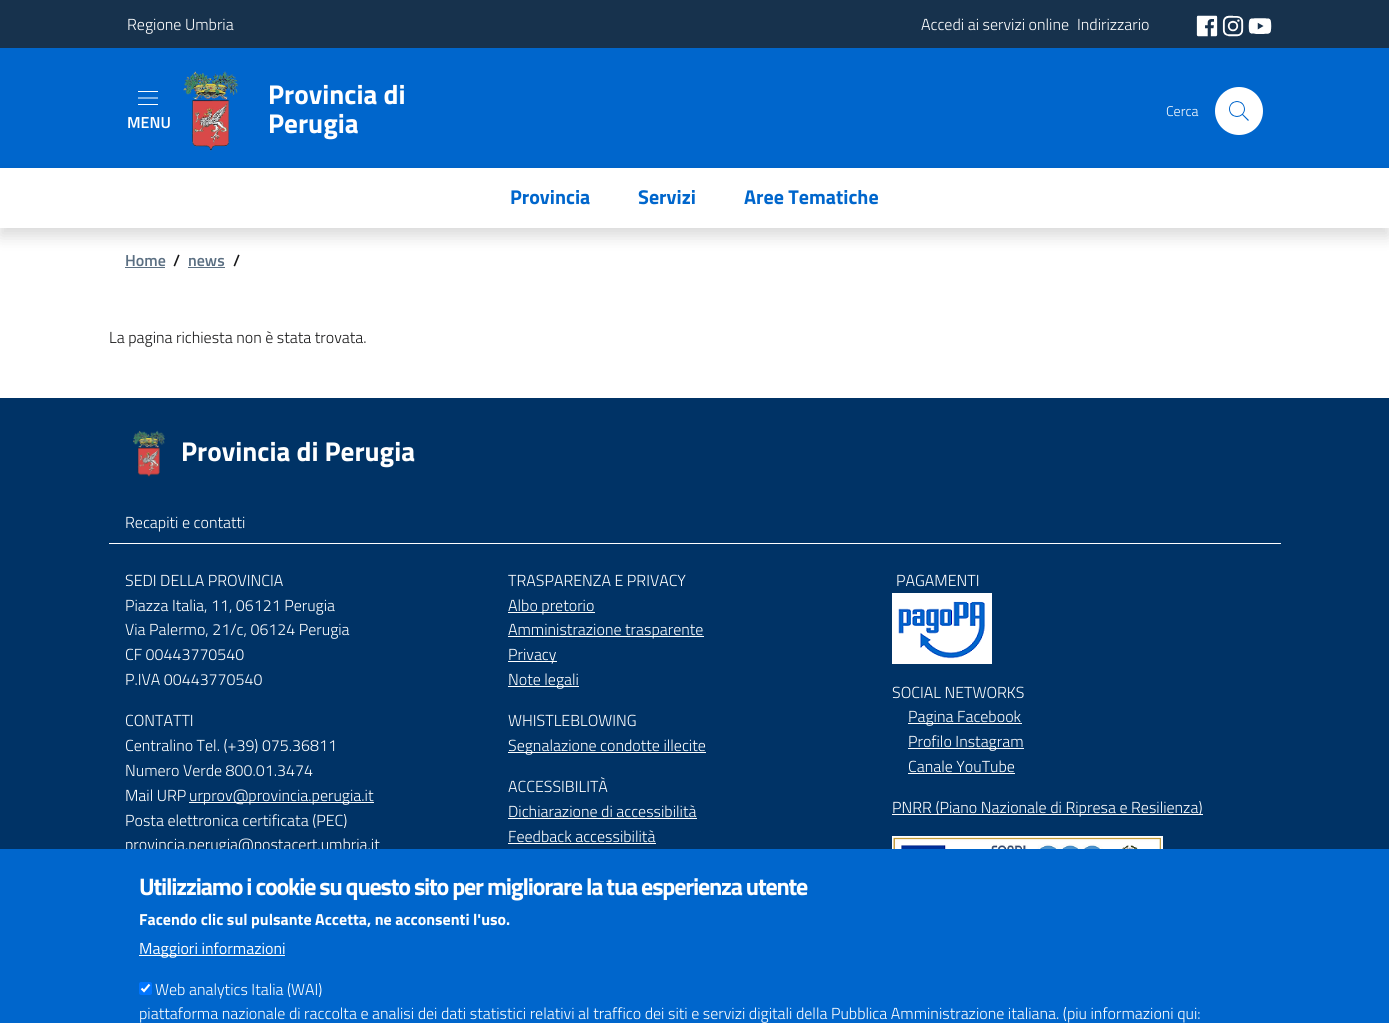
import math
import cairocffi as cairo

surface = cairo.ImageSurface(cairo.FORMAT_RGB24, 1389, 1023)
cr = cairo.Context(surface)
options = cairo.FontOptions()
options.set_hint_metrics(cairo.HINT_METRICS_OFF)
options.set_hint_style(cairo.HINT_STYLE_NONE)
cr.set_font_options(options)
cr.set_miter_limit(4)


def use_color(code):
    cr.set_source_rgb(*(v / 255 for v in bytes.fromhex(code[-6:])))


def spaced_text(x, y, s, letter, word):
    cr.move_to(x, y)
    for ch in s:
        cr.show_text(ch)
        cr.rel_move_to(letter + word * (ch == ' '), 0)


def round_rect(x, y, w, h, r):
    cr.new_sub_path()
    for i, (u, v) in enumerate([(x + w - r, y + h - r), (x + r, y + h - r), (x + r, y + r), (x + w - r, y + r)]):
        cr.arc(u, v, r, i * math.pi / 2, (i + 1) * math.pi / 2)
    cr.close_path()


def shadow(x, y, w, h, r, blur, alpha):
    cr.push_group_with_content(cairo.CONTENT_ALPHA)
    cr.set_operator(cairo.OPERATOR_SOURCE)
    for i in range(15, -16, -2):
        e = blur * i / 6
        if min(w, h) + 2 * e > 0:
            cr.set_source_rgba(0, 0, 0, alpha * math.erfc((i - 1) / 8.5) / 2)
            round_rect(x - e, y - e, w + 2 * e, h + 2 * e, max(0, min(r + e + blur * .6, min(w, h) / 2 + e)))
            cr.fill()
    cr.mask(cr.pop_group())


def picture(path, x, y, w, h):
    cr.save()
    cr.set_source_surface(cairo.ImageSurface.create_from_png(path), x, y)
    cr.rectangle(x, y, w, h)
    cr.fill()
    cr.restore()


use_color("#ffffff")
cr.paint()
use_color("#17324d")
cr.rectangle(0, 0, 1389, 48)
cr.fill()
cr.select_font_face("Titillium Web Light")
cr.set_font_size(16)
use_color("#ffffff")
cr.move_to(127, 30)
cr.show_text("Regione Umbria")
cr.move_to(921, 30)
cr.show_text("Accedi ai servizi online")
cr.move_to(1077, 30)
cr.show_text("Indirizzario")
picture("img1.png", 1196, 15, 22, 22)
picture("img2.png", 1222, 15, 22, 22)
picture("img3.png", 1248, 18, 24, 16)
use_color("#0066cc")
cr.rectangle(0, 48, 1389, 120)
cr.fill()
picture("img4.png", 138, 91, 20, 14)
cr.select_font_face("Titillium Web SemiBold")
use_color("#ffffff")
cr.move_to(127, 128)
cr.show_text("MENU")
picture("img5.png", 183, 71, 56, 80)
cr.select_font_face("Titillium Web", cairo.FONT_SLANT_NORMAL, cairo.FONT_WEIGHT_BOLD)
cr.set_font_size(27.25)
cr.move_to(268, 104)
cr.show_text("Provincia di")
cr.move_to(268, 133)
cr.show_text("Perugia")
cr.select_font_face("Titillium Web Light")
cr.set_font_size(14)
cr.move_to(1166, 116)
cr.show_text("Cerca")
cr.new_path()
cr.arc(1239, 111, 24, 0, 2 * math.pi)
cr.fill()
picture("img6.png", 1229, 101, 20, 20)
cr.save()
cr.set_fill_rule(cairo.FILL_RULE_EVEN_ODD)
cr.new_path()
cr.move_to(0, 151)
cr.line_to(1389, 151)
cr.line_to(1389, 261)
cr.line_to(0, 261)
cr.close_path()
cr.move_to(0, 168)
cr.line_to(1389, 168)
cr.line_to(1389, 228)
cr.line_to(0, 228)
cr.close_path()
cr.clip()
use_color("#000000")
shadow(0, 176, 1389, 60, 0, 8, 0.15)
cr.restore()
cr.select_font_face("Titillium Web", cairo.FONT_SLANT_NORMAL, cairo.FONT_WEIGHT_BOLD)
cr.set_font_size(20)
use_color("#0066cc")
cr.move_to(510, 204)
cr.show_text("Provincia")
cr.move_to(638, 204)
cr.show_text("Servizi")
cr.move_to(744, 204)
cr.show_text("Aree Tematiche")
cr.select_font_face("Titillium Web SemiBold")
cr.set_font_size(16)
use_color("#5b6f82")
cr.move_to(125, 266)
cr.show_text("Home")
cr.rectangle(125, 267, 40, 1)
cr.fill()
use_color("#19191a")
cr.move_to(173, 266)
cr.show_text("/")
use_color("#5b6f82")
cr.move_to(188, 266)
cr.show_text("news")
cr.rectangle(188, 267, 37, 1)
cr.fill()
use_color("#19191a")
cr.move_to(233, 266)
cr.show_text("/")
cr.select_font_face("Titillium Web Light")
cr.move_to(109, 343)
cr.show_text("La pagina richiesta non è stata trovata.")
use_color("#003366")
cr.rectangle(0, 398, 1389, 451)
cr.fill()
picture("img7.png", 133, 430, 32, 47)
cr.select_font_face("Titillium Web", cairo.FONT_SLANT_NORMAL, cairo.FONT_WEIGHT_BOLD)
cr.set_font_size(27.25)
use_color("#ffffff")
cr.move_to(181, 461)
cr.show_text("Provincia di Perugia")
cr.select_font_face("Titillium Web Light")
cr.set_font_size(16)
cr.move_to(125, 528)
cr.show_text("Recapiti e contatti")
cr.rectangle(109, 543, 1172, 1)
cr.fill()
cr.move_to(125, 586)
cr.show_text("SEDI DELLA PROVINCIA")
cr.move_to(125, 611)
cr.show_text("Piazza Italia, 11, 06121 Perugia")
cr.move_to(125, 635)
cr.show_text("Via Palermo, 21/c, 06124 Perugia")
cr.move_to(125, 660)
cr.show_text("CF 00443770540")
cr.move_to(125, 685)
cr.show_text("P.IVA 00443770540")
cr.move_to(125, 726)
cr.show_text("CONTATTI")
cr.move_to(125, 751)
cr.show_text("Centralino Tel. (+39) 075.36811")
cr.move_to(125, 776)
cr.show_text("Numero Verde 800.01.3474")
cr.move_to(125, 801)
cr.show_text("Mail URP")
cr.rectangle(189, 802, 185, 1)
cr.fill()
cr.move_to(189, 801)
cr.show_text("urprov@provincia.perugia.it")
cr.move_to(125, 826)
cr.show_text("Posta elettronica certificata (PEC)")
cr.move_to(125, 850)
cr.show_text("provincia.perugia@postacert.umbria.it")
cr.move_to(508, 586)
cr.show_text("TRASPARENZA E PRIVACY")
cr.rectangle(508, 612, 87, 1)
cr.fill()
cr.move_to(508, 611)
cr.show_text("Albo pretorio")
cr.rectangle(508, 636, 196, 1)
cr.fill()
cr.move_to(508, 635)
cr.show_text("Amministrazione trasparente")
cr.rectangle(508, 661, 49, 1)
cr.fill()
cr.move_to(508, 660)
cr.show_text("Privacy")
cr.rectangle(508, 686, 71, 1)
cr.fill()
cr.move_to(508, 685)
cr.show_text("Note legali")
cr.move_to(508, 726)
cr.show_text("WHISTLEBLOWING")
cr.rectangle(508, 752, 198, 1)
cr.fill()
cr.move_to(508, 751)
cr.show_text("Segnalazione condotte illecite")
cr.move_to(508, 792)
cr.show_text("ACCESSIBILITÀ")
cr.move_to(508, 817)
cr.show_text("Dichiarazione di accessibilità")
cr.rectangle(508, 818, 189, 1)
cr.fill()
cr.move_to(508, 842)
cr.show_text("Feedback accessibilità")
cr.rectangle(508, 843, 148, 1)
cr.fill()
cr.move_to(896, 586)
cr.show_text("PAGAMENTI")
picture("img8.png", 892, 593, 100, 71)
cr.move_to(892, 698)
cr.show_text("SOCIAL NETWORKS")
cr.rectangle(908, 723, 114, 1)
cr.fill()
cr.move_to(908, 722)
cr.show_text("Pagina Facebook")
cr.rectangle(908, 748, 116, 1)
cr.fill()
cr.move_to(908, 747)
cr.show_text("Profilo Instagram")
cr.move_to(908, 772)
cr.show_text("Canale YouTube")
cr.rectangle(908, 773, 107, 1)
cr.fill()
cr.rectangle(892, 814, 311, 1)
cr.fill()
cr.move_to(892, 813)
cr.show_text("PNRR (Piano Nazionale di Ripresa e Resilienza)")
picture("img9.png", 892, 836, 271, 13)
use_color("#0066cc")
cr.rectangle(0, 849, 1389, 174)
cr.fill()
cr.select_font_face("Titillium Web", cairo.FONT_SLANT_NORMAL, cairo.FONT_WEIGHT_BOLD)
cr.set_font_size(24)
use_color("#ffffff")
spaced_text(139, 895, "Utilizziamo i cookie su questo sito per migliorare la tua esperienza utente", -1.2, 0)
cr.set_font_size(16)
cr.move_to(139, 925)
cr.show_text("Facendo clic sul pulsante Accetta, ne acconsenti l'uso.")
cr.rectangle(139, 955, 146, 1)
cr.fill()
cr.select_font_face("Titillium Web")
cr.move_to(139, 954)
cr.show_text("Maggiori informazioni")
use_color("#0075ff")
round_rect(139, 982, 13, 13, 2)
cr.fill()
cr.new_path()
cr.move_to(141.5, 988.5)
cr.line_to(144, 991)
cr.line_to(149.5, 984.5)
use_color("#ffffff")
cr.set_line_width(2.1)
cr.stroke()
cr.select_font_face("Titillium Web Light")
cr.move_to(155, 995)
cr.show_text("Web analytics Italia (WAI)")
cr.move_to(139, 1019)
cr.show_text("piattaforma nazionale di raccolta e analisi dei dati statistici relativi al traffico dei siti e servizi digitali della Pubblica Amministrazione italiana. (piu informazioni qui:")
surface.write_to_png("result.png")
